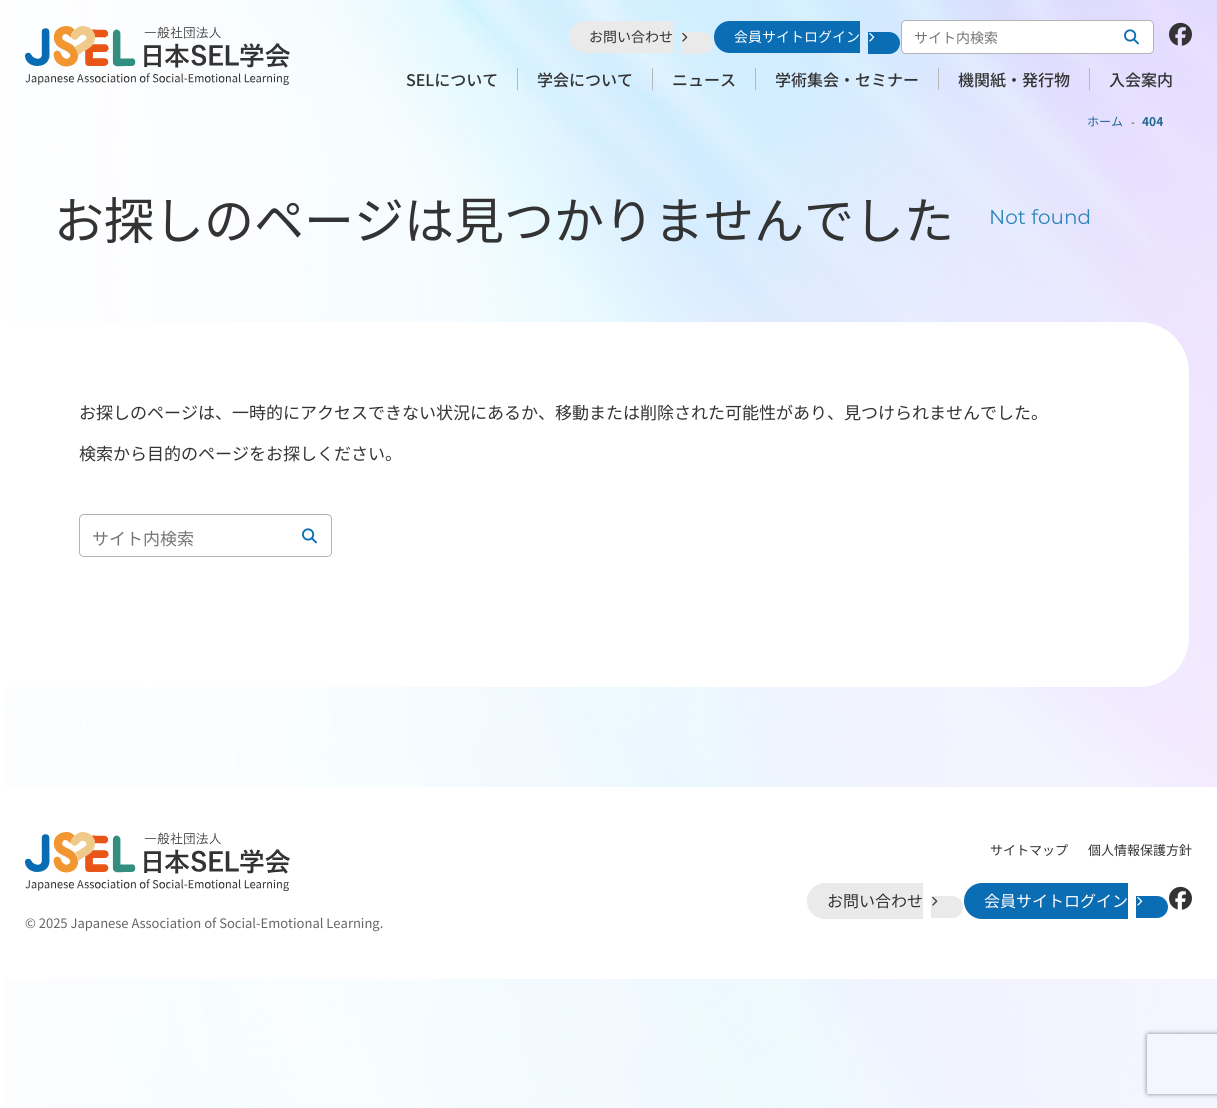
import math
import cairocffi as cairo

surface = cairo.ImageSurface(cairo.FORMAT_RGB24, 1217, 1108)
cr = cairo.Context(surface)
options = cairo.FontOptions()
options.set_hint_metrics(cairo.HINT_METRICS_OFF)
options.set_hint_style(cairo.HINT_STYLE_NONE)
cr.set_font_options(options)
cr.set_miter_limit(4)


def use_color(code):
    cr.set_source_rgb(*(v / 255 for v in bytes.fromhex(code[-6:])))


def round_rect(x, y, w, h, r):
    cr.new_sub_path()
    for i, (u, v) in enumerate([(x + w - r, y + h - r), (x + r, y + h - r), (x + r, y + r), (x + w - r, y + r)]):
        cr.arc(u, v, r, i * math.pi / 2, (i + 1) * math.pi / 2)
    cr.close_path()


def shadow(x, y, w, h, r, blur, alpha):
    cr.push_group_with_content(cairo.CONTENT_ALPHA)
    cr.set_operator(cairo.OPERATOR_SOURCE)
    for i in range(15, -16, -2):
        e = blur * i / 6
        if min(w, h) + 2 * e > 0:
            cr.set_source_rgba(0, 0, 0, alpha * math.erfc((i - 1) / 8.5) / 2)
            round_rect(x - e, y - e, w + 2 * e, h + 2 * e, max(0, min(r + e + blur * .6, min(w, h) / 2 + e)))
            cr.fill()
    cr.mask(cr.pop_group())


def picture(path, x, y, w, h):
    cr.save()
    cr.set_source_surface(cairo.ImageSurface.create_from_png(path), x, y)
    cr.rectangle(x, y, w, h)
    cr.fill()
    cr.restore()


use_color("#ffffff")
cr.paint()
picture("img1.png", 4, 0, 1213, 1108)
picture("img2.png", 25, 26, 265, 59)
use_color("#eaeaea")
cr.new_path()
cr.move_to(585, 21)
cr.line_to(673, 21)
cr.line_to(673, 53)
cr.line_to(585, 53)
cr.curve_to(576, 53, 569, 46, 569, 37)
cr.curve_to(569, 28, 576, 21, 585, 21)
cr.close_path()
cr.fill()
cr.new_path()
cr.move_to(681, 32)
cr.line_to(702, 32)
cr.curve_to(708, 32, 713, 37, 713, 43)
cr.curve_to(713, 49, 708, 54, 702, 54)
cr.line_to(681, 54)
cr.close_path()
cr.fill()
cr.select_font_face("Noto Sans JP")
cr.set_font_size(14)
use_color("#333333")
cr.move_to(589, 42)
cr.show_text("お問い合わせ")
picture("img3.png", 682, 32, 6, 10)
use_color("#0b6db4")
cr.new_path()
cr.move_to(730, 21)
cr.line_to(860, 21)
cr.line_to(860, 53)
cr.line_to(730, 53)
cr.curve_to(721, 53, 714, 46, 714, 37)
cr.curve_to(714, 28, 721, 21, 730, 21)
cr.close_path()
cr.fill()
cr.new_path()
cr.move_to(868, 32)
cr.line_to(889, 32)
cr.curve_to(895, 32, 900, 37, 900, 43)
cr.curve_to(900, 49, 895, 54, 889, 54)
cr.line_to(868, 54)
cr.close_path()
cr.fill()
use_color("#ffffff")
cr.move_to(734, 42)
cr.show_text("会員サイトログイン")
picture("img4.png", 869, 32, 6, 10)
round_rect(901.5, 20.5, 252, 33, 4.5)
use_color("#b3b3b3")
cr.set_line_width(1)
cr.stroke()
use_color("#ffffff")
round_rect(902, 21, 251, 32, 4)
cr.fill()
use_color("#757575")
cr.move_to(914, 43)
cr.show_text("サイト内検索")
picture("img5.png", 1124, 29, 15, 16)
picture("img6.png", 1169, 22, 23, 24)
use_color("#b7b7b7")
cr.rectangle(517, 68, 1, 22)
cr.fill()
cr.select_font_face("Noto Sans JP Medium")
cr.set_font_size(16)
use_color("#333333")
cr.move_to(406, 86)
cr.show_text("SELについて")
use_color("#b7b7b7")
cr.rectangle(652, 68, 1, 22)
cr.fill()
use_color("#333333")
cr.move_to(537, 86)
cr.show_text("学会について")
use_color("#b7b7b7")
cr.rectangle(755, 68, 1, 22)
cr.fill()
use_color("#333333")
cr.move_to(672, 86)
cr.show_text("ニュース")
use_color("#b7b7b7")
cr.rectangle(938, 68, 1, 22)
cr.fill()
use_color("#333333")
cr.move_to(775, 86)
cr.show_text("学術集会・セミナー")
use_color("#b7b7b7")
cr.rectangle(1089, 68, 1, 22)
cr.fill()
use_color("#333333")
cr.move_to(958, 86)
cr.show_text("機関紙・発行物")
cr.move_to(1109, 86)
cr.show_text("入会案内")
cr.select_font_face("Noto Sans JP")
cr.set_font_size(12)
use_color("#21668f")
cr.move_to(1087, 126)
cr.show_text("ホーム")
cr.select_font_face("Noto Sans JP", cairo.FONT_SLANT_NORMAL, cairo.FONT_WEIGHT_BOLD)
cr.set_font_size(10)
use_color("#666666")
cr.move_to(1131, 126)
cr.show_text("-")
cr.set_font_size(12)
use_color("#21668f")
cr.move_to(1142, 126)
cr.show_text("404")
cr.select_font_face("Noto Sans JP")
cr.set_font_size(50)
use_color("#333333")
cr.move_to(54, 239)
cr.show_text("お探しのページは見つかりませんでした")
cr.select_font_face("Montserrat Thin")
cr.set_font_size(20)
use_color("#2e85b9")
cr.move_to(989, 224)
cr.show_text("Not found")
use_color("#ffffff")
cr.new_path()
cr.move_to(0, 322)
cr.line_to(1139, 322)
cr.curve_to(1166.5, 322, 1189, 344.5, 1189, 372)
cr.line_to(1189, 637)
cr.curve_to(1189, 664.5, 1166.5, 687, 1139, 687)
cr.line_to(0, 687)
cr.close_path()
cr.fill()
cr.select_font_face("Noto Sans JP")
cr.set_font_size(17)
use_color("#333333")
cr.move_to(79, 419)
cr.show_text("お探しのページは、一時的にアクセスできない状況にあるか、移動または削除された可能性があり、見つけられませんでした。")
cr.move_to(79, 460)
cr.show_text("検索から目的のページをお探しください。")
round_rect(79.5, 514.5, 252, 42, 4.5)
use_color("#b3b3b3")
cr.stroke()
use_color("#ffffff")
cr.new_path()
cr.move_to(82, 519)
cr.line_to(329, 519)
cr.curve_to(330, 519, 331, 520, 331, 521)
cr.line_to(331, 552)
cr.curve_to(331, 554, 329, 556, 327, 556)
cr.line_to(84, 556)
cr.curve_to(82, 556, 80, 554, 80, 552)
cr.line_to(80, 521)
cr.curve_to(80, 520, 81, 519, 82, 519)
cr.close_path()
cr.fill()
use_color("#757575")
cr.move_to(92, 545)
cr.show_text("サイト内検索")
picture("img5.png", 302, 528, 15, 16)
use_color("#ffffff")
cr.rectangle(4, 787, 1213, 192)
cr.fill()
cr.set_font_size(13)
use_color("#333333")
cr.move_to(990, 855)
cr.show_text("サイトマップ")
cr.move_to(1088, 855)
cr.show_text("個人情報保護方針")
use_color("#eaeaea")
cr.new_path()
cr.move_to(825, 883)
cr.line_to(923, 883)
cr.line_to(923, 919)
cr.line_to(825, 919)
cr.curve_to(815, 919, 807, 911, 807, 901)
cr.curve_to(807, 891, 815, 883, 825, 883)
cr.close_path()
cr.fill()
cr.new_path()
cr.move_to(931, 896)
cr.line_to(952, 896)
cr.curve_to(958, 896, 963, 901, 963, 907)
cr.curve_to(963, 913, 958, 918, 952, 918)
cr.line_to(931, 918)
cr.close_path()
cr.fill()
cr.set_font_size(16)
use_color("#333333")
cr.move_to(827, 907)
cr.show_text("お問い合わせ")
picture("img3.png", 932, 896, 6, 10)
use_color("#0b6db4")
cr.new_path()
cr.move_to(982, 883)
cr.line_to(1128, 883)
cr.line_to(1128, 919)
cr.line_to(982, 919)
cr.curve_to(972, 919, 964, 911, 964, 901)
cr.curve_to(964, 891, 972, 883, 982, 883)
cr.close_path()
cr.fill()
cr.new_path()
cr.move_to(1136, 896)
cr.line_to(1157, 896)
cr.curve_to(1163, 896, 1168, 901, 1168, 907)
cr.curve_to(1168, 913, 1163, 918, 1157, 918)
cr.line_to(1136, 918)
cr.close_path()
cr.fill()
use_color("#ffffff")
cr.move_to(984, 907)
cr.show_text("会員サイトログイン")
picture("img4.png", 1137, 896, 6, 10)
picture("img7.png", 1169, 886, 23, 24)
picture("img8.png", 25, 832, 265, 59)
cr.set_font_size(13)
use_color("#666666")
cr.move_to(25, 928)
cr.show_text("© 2025 Japanese Association of Social-Emotional Learning.")
cr.save()
cr.set_fill_rule(cairo.FILL_RULE_EVEN_ODD)
cr.new_path()
cr.move_to(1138, 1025)
cr.line_to(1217, 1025)
cr.line_to(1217, 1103)
cr.line_to(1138, 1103)
cr.close_path()
cr.move_to(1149, 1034)
cr.line_to(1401, 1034)
cr.curve_to(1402, 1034, 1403, 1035, 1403, 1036)
cr.line_to(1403, 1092)
cr.curve_to(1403, 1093, 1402, 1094, 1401, 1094)
cr.line_to(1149, 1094)
cr.curve_to(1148, 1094, 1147, 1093, 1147, 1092)
cr.line_to(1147, 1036)
cr.curve_to(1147, 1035, 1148, 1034, 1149, 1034)
cr.close_path()
cr.clip()
use_color("#808080")
shadow(1147, 1034, 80, 60, 2, 2.5, 1)
cr.restore()
surface.write_to_png("result.png")
